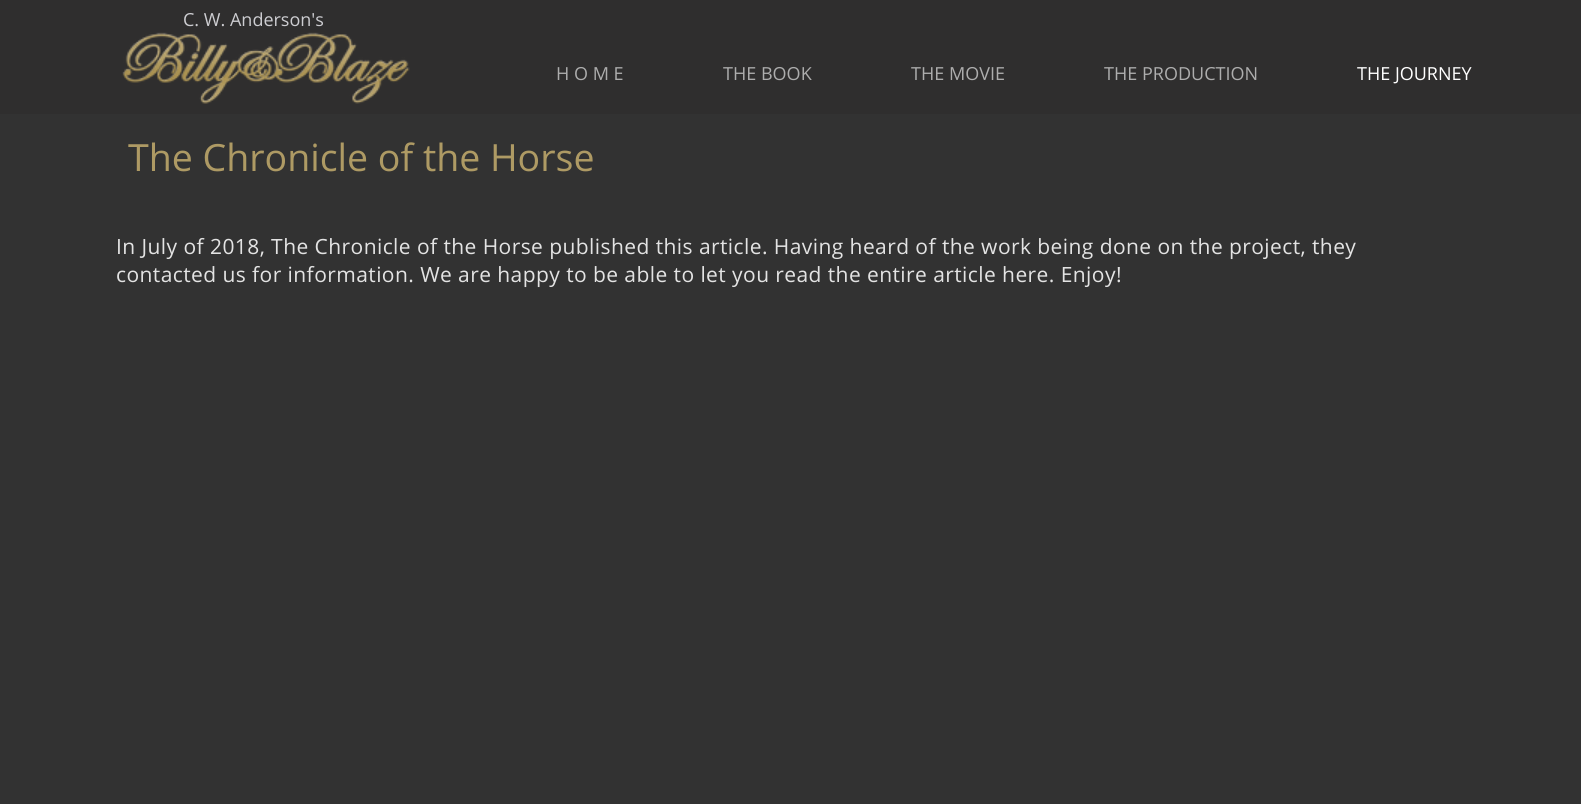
import math
import cairocffi as cairo

surface = cairo.ImageSurface(cairo.FORMAT_RGB24, 1581, 804)
cr = cairo.Context(surface)
options = cairo.FontOptions()
options.set_hint_metrics(cairo.HINT_METRICS_OFF)
options.set_hint_style(cairo.HINT_STYLE_NONE)
cr.set_font_options(options)
cr.set_miter_limit(4)


def use_color(code):
    cr.set_source_rgb(*(v / 255 for v in bytes.fromhex(code[-6:])))


def spaced_text(x, y, s, letter, word):
    cr.move_to(x, y)
    for ch in s:
        cr.show_text(ch)
        cr.rel_move_to(letter + word * (ch == ' '), 0)


def picture(path, x, y, w, h):
    cr.save()
    cr.set_source_surface(cairo.ImageSurface.create_from_png(path), x, y)
    cr.rectangle(x, y, w, h)
    cr.fill()
    cr.restore()


use_color("#323232")
cr.paint()
use_color("#2f2e2e")
cr.rectangle(0, 0, 1581, 114)
cr.fill()
cr.select_font_face("Open Sans")
cr.set_font_size(18)
use_color("#cdcdd1")
cr.move_to(183, 26)
cr.show_text("C. W. Anderson's")
picture("img1.png", 122, 32, 288, 72)
use_color("#adadad")
cr.move_to(556, 80)
cr.show_text("H O M E")
cr.move_to(723, 80)
cr.show_text("THE BOOK")
cr.move_to(911, 80)
cr.show_text("THE MOVIE")
cr.move_to(1104, 80)
cr.show_text("THE PRODUCTION")
use_color("#ffffff")
cr.move_to(1357, 80)
cr.show_text("THE JOURNEY")
cr.set_font_size(37.5)
use_color("#ae9a64")
cr.move_to(128, 171)
cr.show_text("The Chronicle of the Horse")
cr.set_font_size(21)
use_color("#e3e3e3")
spaced_text(116, 254, "In July of 2018, The Chronicle of the Horse published this article. Having heard of the work being done on the project, they", 0.42, 0)
spaced_text(116, 282, "contacted us for information. We are happy to be able to let you read the entire article here. Enjoy!", 0.42, 0)
surface.write_to_png("result.png")
